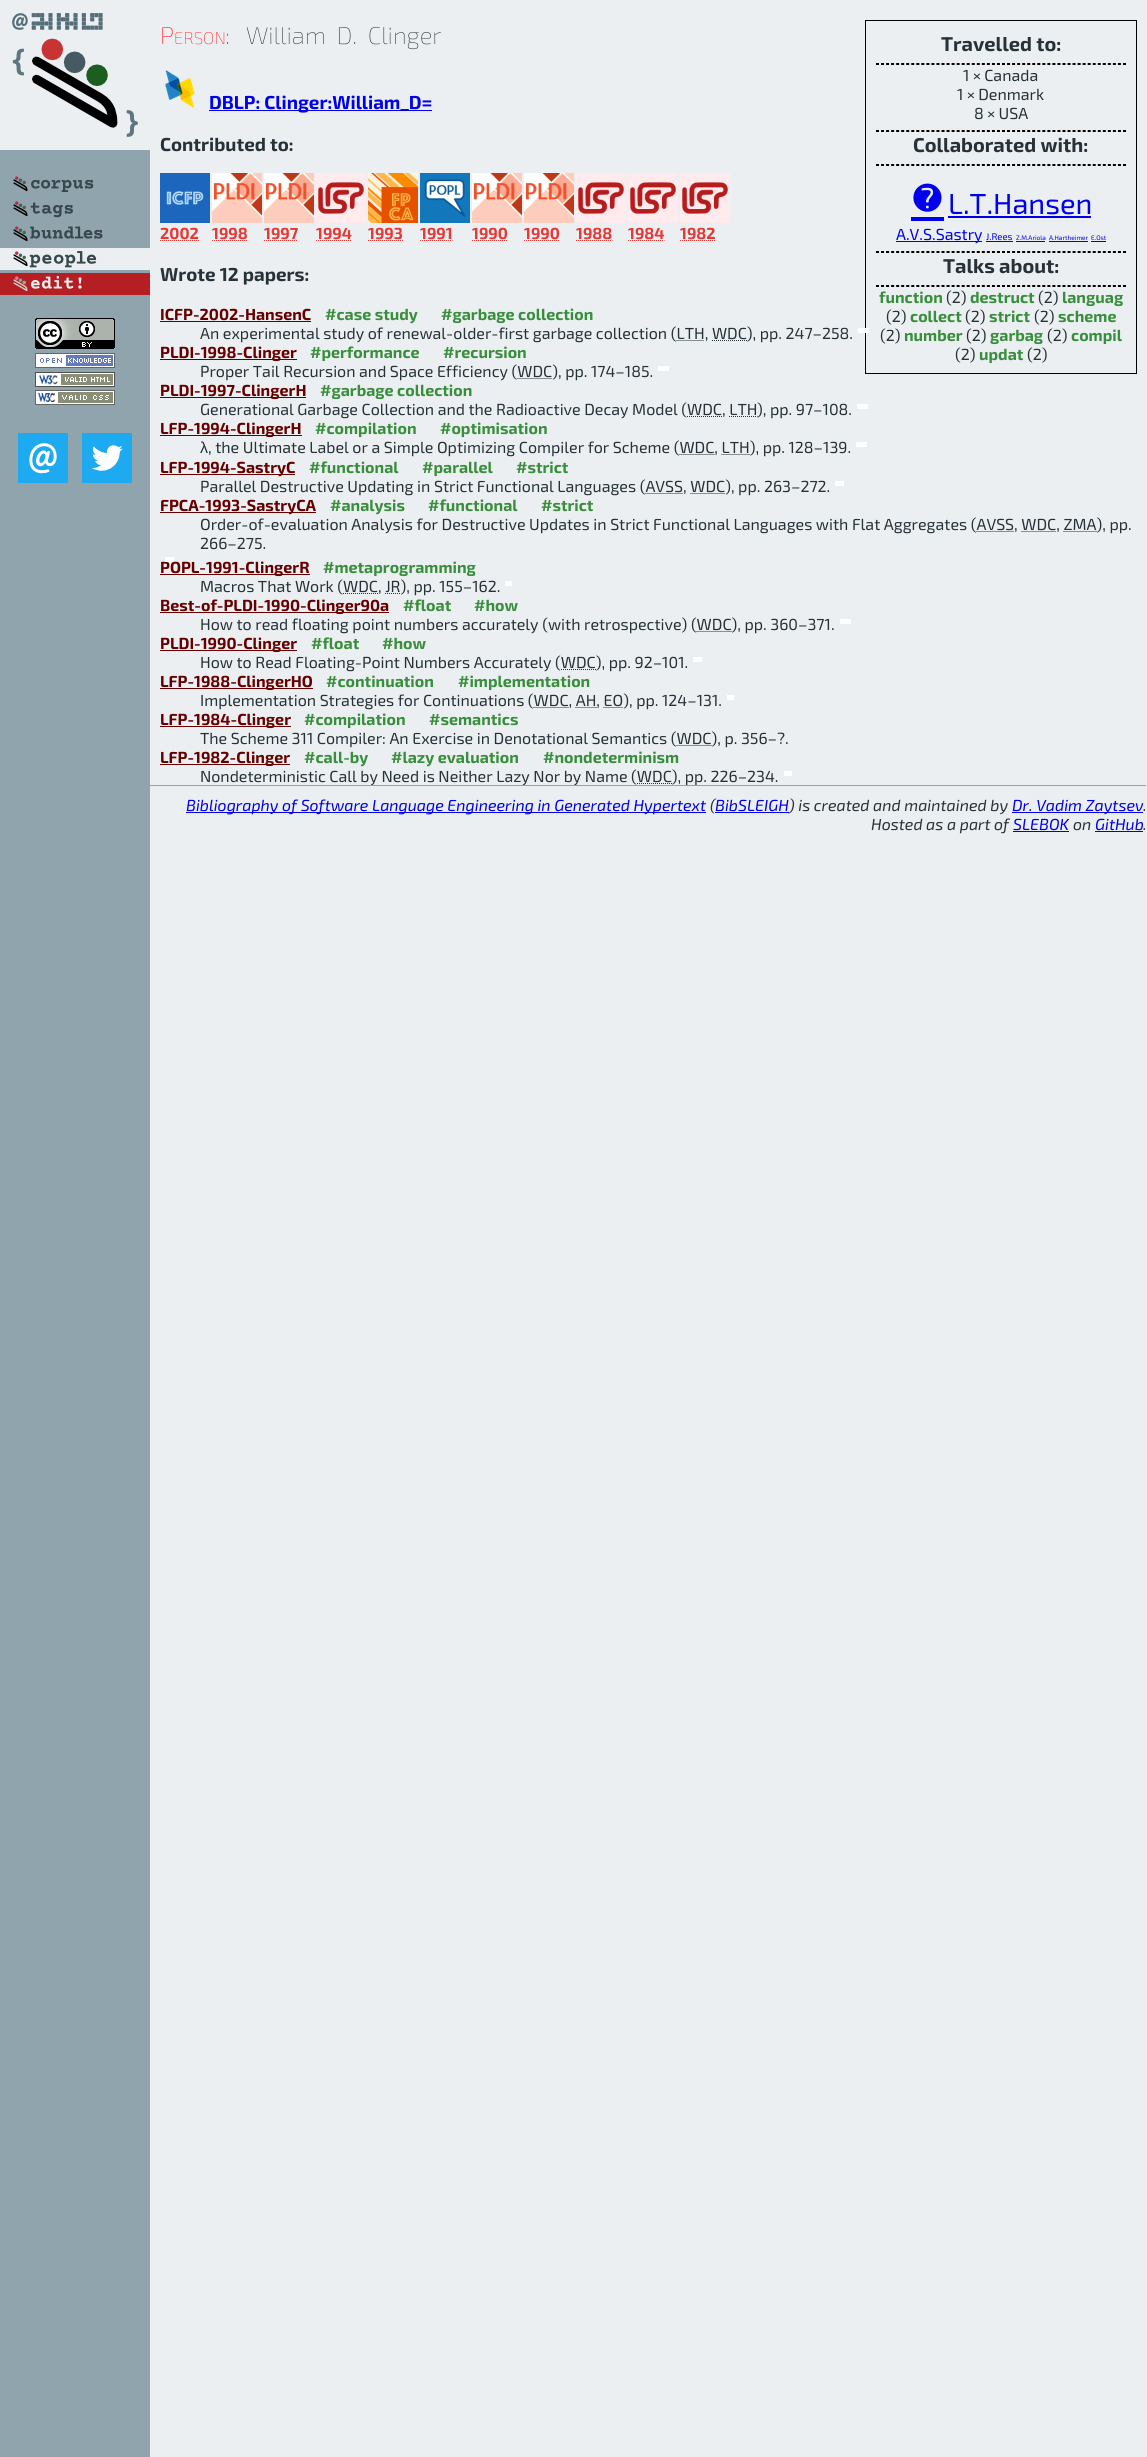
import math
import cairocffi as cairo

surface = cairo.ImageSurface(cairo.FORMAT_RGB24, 1147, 2457)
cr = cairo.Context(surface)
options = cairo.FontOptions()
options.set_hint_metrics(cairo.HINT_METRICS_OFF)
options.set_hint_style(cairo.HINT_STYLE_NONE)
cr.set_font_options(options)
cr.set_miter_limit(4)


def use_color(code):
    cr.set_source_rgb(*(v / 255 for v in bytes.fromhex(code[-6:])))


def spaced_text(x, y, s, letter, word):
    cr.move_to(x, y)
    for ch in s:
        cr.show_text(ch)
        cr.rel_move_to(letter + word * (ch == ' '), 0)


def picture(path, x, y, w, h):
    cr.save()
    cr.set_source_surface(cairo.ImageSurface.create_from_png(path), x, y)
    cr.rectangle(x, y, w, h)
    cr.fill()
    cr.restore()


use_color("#eceff1")
cr.paint()
use_color("#90a4ae")
cr.rectangle(0, 150, 150, 2307)
cr.fill()
picture("img1.png", 0, 0, 150, 150)
picture("img2.png", 13, 176, 81, 16)
picture("img3.png", 13, 201, 60, 17)
picture("img4.png", 13, 226, 90, 16)
picture("img5.png", 0, 248, 150, 22)
picture("img6.png", 0, 273, 150, 22)
picture("img7.png", 35, 318, 80, 31)
picture("img8.png", 35, 353, 80, 15)
picture("img9.png", 35, 372, 80, 15)
picture("img10.png", 35, 390, 80, 15)
picture("img11.png", 18, 433, 50, 50)
picture("img12.png", 82, 433, 50, 50)
cr.select_font_face("Exo 2 Thin")
cr.set_font_size(24)
use_color("#ff0000")
cr.move_to(160, 44)
cr.show_text("P")
cr.set_font_size(17)
cr.move_to(174, 44)
cr.show_text("ERSON")
cr.set_font_size(24)
cr.move_to(225, 44)
cr.show_text(":")
use_color("#263238")
spaced_text(246, 44, "William D. Clinger", 0, 5)
cr.rectangle(865.5, 20.5, 271, 353)
use_color("#000000")
cr.set_line_width(1)
cr.stroke()
cr.select_font_face("Exo 2", cairo.FONT_SLANT_NORMAL, cairo.FONT_WEIGHT_BOLD)
cr.set_font_size(20)
use_color("#263238")
cr.move_to(941, 51)
cr.show_text("Travelled to:")
cr.new_path()
cr.move_to(876, 63.5)
cr.line_to(1126, 63.5)
use_color("#000000")
cr.set_dash([3, 2.04])
cr.stroke()
cr.rectangle(1125, 63, 1, 2)
cr.fill()
cr.new_path()
cr.move_to(876, 64.5)
cr.line_to(1126, 64.5)
cr.stroke()
cr.select_font_face("Exo 2")
cr.set_font_size(16)
use_color("#263238")
cr.move_to(963, 81)
cr.show_text("1 × Canada")
cr.move_to(957, 100)
cr.show_text("1 × Denmark")
cr.move_to(974, 119)
cr.show_text("8 × USA")
cr.new_path()
cr.move_to(876, 130.5)
cr.line_to(1126, 130.5)
use_color("#000000")
cr.stroke()
cr.rectangle(1125, 130, 1, 2)
cr.fill()
cr.new_path()
cr.move_to(876, 131.5)
cr.line_to(1126, 131.5)
cr.stroke()
cr.select_font_face("Exo 2", cairo.FONT_SLANT_NORMAL, cairo.FONT_WEIGHT_BOLD)
cr.set_font_size(20)
use_color("#263238")
cr.move_to(913, 152)
cr.show_text("Collaborated with:")
cr.new_path()
cr.move_to(876, 164.5)
cr.line_to(1126, 164.5)
use_color("#000000")
cr.stroke()
cr.rectangle(1125, 164, 1, 2)
cr.fill()
cr.new_path()
cr.move_to(876, 165.5)
cr.line_to(1126, 165.5)
cr.stroke()
cr.select_font_face("Exo 2")
cr.set_font_size(48)
use_color("#0000ee")
cr.move_to(911, 214)
cr.show_text("∅")
cr.rectangle(911, 217, 33, 4)
cr.fill()
cr.set_font_size(29)
cr.move_to(948, 214)
cr.show_text("L.T.Hansen")
cr.rectangle(948, 216, 143, 2)
cr.fill()
cr.rectangle(896, 241, 86, 1)
cr.fill()
cr.set_font_size(16)
cr.move_to(896, 240)
cr.show_text("A.V.S.Sastry")
cr.set_font_size(9.5)
cr.move_to(986, 240)
cr.show_text("J.Rees")
cr.rectangle(986, 241, 27, 1)
cr.fill()
cr.set_font_size(6.5)
cr.move_to(1016, 240)
cr.show_text("Z.M.Ariola")
cr.rectangle(1016, 241, 29, 1)
cr.fill()
cr.move_to(1049, 240)
cr.show_text("A.Hartheimer")
cr.rectangle(1049, 241, 39, 1)
cr.fill()
cr.move_to(1091, 240)
cr.show_text("E.Ost")
cr.rectangle(1091, 241, 15, 1)
cr.fill()
cr.new_path()
cr.move_to(876, 251.5)
cr.line_to(1126, 251.5)
use_color("#000000")
cr.stroke()
cr.rectangle(1125, 251, 1, 2)
cr.fill()
cr.new_path()
cr.move_to(876, 252.5)
cr.line_to(1126, 252.5)
cr.stroke()
cr.select_font_face("Exo 2", cairo.FONT_SLANT_NORMAL, cairo.FONT_WEIGHT_BOLD)
cr.set_font_size(20)
use_color("#263238")
cr.move_to(943, 273)
cr.show_text("Talks about:")
cr.new_path()
cr.move_to(876, 285.5)
cr.line_to(1126, 285.5)
use_color("#000000")
cr.stroke()
cr.rectangle(1125, 285, 1, 2)
cr.fill()
cr.new_path()
cr.move_to(876, 286.5)
cr.line_to(1126, 286.5)
cr.stroke()
cr.set_font_size(16)
use_color("#388e3c")
cr.move_to(879, 303)
cr.show_text("function")
cr.select_font_face("Exo 2")
use_color("#263238")
cr.move_to(946, 303)
cr.show_text("(2)")
cr.select_font_face("Exo 2", cairo.FONT_SLANT_NORMAL, cairo.FONT_WEIGHT_BOLD)
use_color("#388e3c")
cr.move_to(970, 303)
cr.show_text("destruct")
cr.select_font_face("Exo 2")
use_color("#263238")
cr.move_to(1038, 303)
cr.show_text("(2)")
cr.select_font_face("Exo 2", cairo.FONT_SLANT_NORMAL, cairo.FONT_WEIGHT_BOLD)
use_color("#388e3c")
cr.move_to(1062, 303)
cr.show_text("languag")
cr.select_font_face("Exo 2")
use_color("#263238")
cr.move_to(886, 322)
cr.show_text("(2)")
cr.select_font_face("Exo 2", cairo.FONT_SLANT_NORMAL, cairo.FONT_WEIGHT_BOLD)
use_color("#388e3c")
cr.move_to(910, 322)
cr.show_text("collect")
cr.select_font_face("Exo 2")
use_color("#263238")
cr.move_to(965, 322)
cr.show_text("(2)")
cr.select_font_face("Exo 2", cairo.FONT_SLANT_NORMAL, cairo.FONT_WEIGHT_BOLD)
use_color("#388e3c")
cr.move_to(989, 322)
cr.show_text("strict")
cr.select_font_face("Exo 2")
use_color("#263238")
cr.move_to(1034, 322)
cr.show_text("(2)")
cr.select_font_face("Exo 2", cairo.FONT_SLANT_NORMAL, cairo.FONT_WEIGHT_BOLD)
use_color("#388e3c")
cr.move_to(1058, 322)
cr.show_text("scheme")
cr.select_font_face("Exo 2")
use_color("#263238")
cr.move_to(880, 341)
cr.show_text("(2)")
cr.select_font_face("Exo 2", cairo.FONT_SLANT_NORMAL, cairo.FONT_WEIGHT_BOLD)
use_color("#388e3c")
cr.move_to(904, 341)
cr.show_text("number")
cr.select_font_face("Exo 2")
use_color("#263238")
cr.move_to(966, 341)
cr.show_text("(2)")
cr.select_font_face("Exo 2", cairo.FONT_SLANT_NORMAL, cairo.FONT_WEIGHT_BOLD)
use_color("#388e3c")
cr.move_to(990, 341)
cr.show_text("garbag")
cr.select_font_face("Exo 2")
use_color("#263238")
cr.move_to(1047, 341)
cr.show_text("(2)")
cr.select_font_face("Exo 2", cairo.FONT_SLANT_NORMAL, cairo.FONT_WEIGHT_BOLD)
use_color("#388e3c")
cr.move_to(1071, 341)
cr.show_text("compil")
cr.select_font_face("Exo 2")
use_color("#263238")
cr.move_to(955, 360)
cr.show_text("(2)")
cr.select_font_face("Exo 2", cairo.FONT_SLANT_NORMAL, cairo.FONT_WEIGHT_BOLD)
use_color("#388e3c")
cr.move_to(979, 360)
cr.show_text("updat")
cr.select_font_face("Exo 2")
use_color("#263238")
cr.move_to(1027, 360)
cr.show_text("(2)")
picture("img13.png", 165, 70, 30, 38)
use_color("#0000ee")
cr.rectangle(209, 110, 223, 1)
cr.fill()
cr.select_font_face("Exo 2", cairo.FONT_SLANT_NORMAL, cairo.FONT_WEIGHT_BOLD)
cr.set_font_size(18.75)
cr.move_to(209, 109)
cr.show_text("DBLP: Clinger:William_D=")
use_color("#263238")
cr.move_to(160, 151)
cr.show_text("Contributed to:")
picture("img14.png", 160, 173, 50, 50)
cr.set_font_size(16)
use_color("#e53935")
cr.move_to(160, 239)
cr.show_text("2002")
cr.new_path()
cr.move_to(160, 240.5)
cr.line_to(199, 240.5)
cr.set_dash([1, 1])
cr.stroke()
picture("img15.png", 212, 173, 50, 50)
cr.move_to(212, 239)
cr.show_text("1998")
cr.new_path()
cr.move_to(212, 240.5)
cr.line_to(248, 240.5)
cr.stroke()
picture("img15.png", 264, 173, 50, 50)
cr.move_to(264, 239)
cr.show_text("1997")
cr.new_path()
cr.move_to(264, 240.5)
cr.line_to(298, 240.5)
cr.stroke()
picture("img16.png", 316, 173, 50, 50)
cr.move_to(316, 239)
cr.show_text("1994")
cr.new_path()
cr.move_to(316, 240.5)
cr.line_to(352, 240.5)
cr.stroke()
picture("img17.png", 368, 173, 50, 50)
cr.move_to(368, 239)
cr.show_text("1993")
cr.new_path()
cr.move_to(368, 240.5)
cr.line_to(403, 240.5)
cr.stroke()
picture("img18.png", 420, 173, 50, 50)
cr.move_to(420, 239)
cr.show_text("1991")
cr.new_path()
cr.move_to(420, 240.5)
cr.line_to(452.5, 240.5)
cr.stroke()
picture("img15.png", 472, 173, 50, 50)
cr.move_to(472, 239)
cr.show_text("1990")
cr.new_path()
cr.move_to(472, 240.5)
cr.line_to(508, 240.5)
cr.stroke()
picture("img15.png", 524, 173, 50, 50)
cr.move_to(524, 239)
cr.show_text("1990")
cr.new_path()
cr.move_to(524, 240.5)
cr.line_to(560, 240.5)
cr.stroke()
picture("img16.png", 576, 173, 50, 50)
cr.move_to(576, 239)
cr.show_text("1988")
cr.new_path()
cr.move_to(576, 240.5)
cr.line_to(612.5, 240.5)
cr.stroke()
picture("img16.png", 628, 173, 50, 50)
cr.move_to(628, 239)
cr.show_text("1984")
cr.new_path()
cr.move_to(628, 240.5)
cr.line_to(664.5, 240.5)
cr.stroke()
picture("img16.png", 680, 173, 50, 50)
cr.move_to(680, 239)
cr.show_text("1982")
cr.new_path()
cr.move_to(680, 240.5)
cr.line_to(715.5, 240.5)
cr.stroke()
cr.set_font_size(18.75)
use_color("#263238")
cr.move_to(160, 281)
cr.show_text("Wrote 12 papers:")
cr.set_font_size(16)
use_color("#660000")
cr.move_to(160, 320)
cr.show_text("ICFP-2002-HansenC")
cr.rectangle(160, 321, 151, 1)
cr.fill()
use_color("#388e3c")
cr.move_to(325, 320)
cr.show_text("#case study")
cr.move_to(441, 320)
cr.show_text("#garbage collection")
cr.select_font_face("Exo 2")
use_color("#263238")
cr.move_to(200, 339)
cr.show_text("An experimental study of renewal-older-first garbage collection (LTH, WDC), pp. 247–258.")
cr.new_path()
cr.move_to(676.5, 340.5)
cr.line_to(704.5, 340.5)
cr.stroke()
cr.new_path()
cr.move_to(712, 340.5)
cr.line_to(747, 340.5)
cr.stroke()
use_color("#ffffff")
cr.rectangle(858, 328, 11, 5)
cr.fill()
use_color("#660000")
cr.rectangle(160, 359, 137, 1)
cr.fill()
cr.select_font_face("Exo 2", cairo.FONT_SLANT_NORMAL, cairo.FONT_WEIGHT_BOLD)
cr.move_to(160, 358)
cr.show_text("PLDI-1998-Clinger")
use_color("#388e3c")
cr.move_to(310, 358)
cr.show_text("#performance")
cr.move_to(443, 358)
cr.show_text("#recursion")
cr.select_font_face("Exo 2")
use_color("#263238")
cr.move_to(200, 377)
cr.show_text("Proper Tail Recursion and Space Efficiency (WDC), pp. 174–185.")
cr.new_path()
cr.move_to(517.5, 378.5)
cr.line_to(552, 378.5)
cr.stroke()
use_color("#ffffff")
cr.rectangle(658, 366, 11, 5)
cr.fill()
use_color("#660000")
cr.rectangle(160, 397, 146, 1)
cr.fill()
cr.select_font_face("Exo 2", cairo.FONT_SLANT_NORMAL, cairo.FONT_WEIGHT_BOLD)
cr.move_to(160, 396)
cr.show_text("PLDI-1997-ClingerH")
use_color("#388e3c")
cr.move_to(320, 396)
cr.show_text("#garbage collection")
cr.select_font_face("Exo 2")
use_color("#263238")
cr.move_to(200, 415)
cr.show_text("Generational Garbage Collection and the Radioactive Decay Model (WDC, LTH")
cr.new_path()
cr.move_to(729, 416.5)
cr.line_to(757.5, 416.5)
cr.stroke()
cr.move_to(757, 415)
cr.show_text("), pp. 97–108.")
cr.new_path()
cr.move_to(687, 416.5)
cr.line_to(722, 416.5)
cr.stroke()
use_color("#ffffff")
cr.rectangle(857, 404, 11, 5)
cr.fill()
use_color("#660000")
cr.rectangle(160, 435, 142, 1)
cr.fill()
cr.select_font_face("Exo 2", cairo.FONT_SLANT_NORMAL, cairo.FONT_WEIGHT_BOLD)
cr.move_to(160, 434)
cr.show_text("LFP-1994-ClingerH")
use_color("#388e3c")
cr.move_to(315, 434)
cr.show_text("#compilation")
cr.move_to(440, 434)
cr.show_text("#optimisation")
cr.select_font_face("Liberation Sans")
use_color("#263238")
cr.move_to(200, 453)
cr.show_text("λ")
cr.select_font_face("Exo 2")
cr.move_to(208, 453)
cr.show_text(", the Ultimate Label or a Simple Optimizing Compiler for Scheme (WDC, LTH), pp. 128–139.")
cr.new_path()
cr.move_to(679.5, 454.5)
cr.line_to(714.5, 454.5)
cr.stroke()
cr.new_path()
cr.move_to(721.5, 454.5)
cr.line_to(750, 454.5)
cr.stroke()
use_color("#ffffff")
cr.rectangle(856, 442, 11, 5)
cr.fill()
use_color("#660000")
cr.rectangle(160, 474, 135, 1)
cr.fill()
cr.select_font_face("Exo 2", cairo.FONT_SLANT_NORMAL, cairo.FONT_WEIGHT_BOLD)
cr.move_to(160, 473)
cr.show_text("LFP-1994-SastryC")
use_color("#388e3c")
cr.move_to(309, 473)
cr.show_text("#functional")
cr.move_to(422, 473)
cr.show_text("#parallel")
cr.move_to(516, 473)
cr.show_text("#strict")
cr.select_font_face("Exo 2")
use_color("#263238")
cr.move_to(200, 492)
cr.show_text("Parallel Destructive Updating in Strict Functional Languages (AVSS, WDC), pp. 263–272.")
cr.new_path()
cr.move_to(645.5, 493.5)
cr.line_to(683, 493.5)
cr.stroke()
cr.new_path()
cr.move_to(690.5, 493.5)
cr.line_to(725, 493.5)
cr.stroke()
use_color("#ffffff")
cr.rectangle(835, 481, 9, 5)
cr.fill()
use_color("#660000")
cr.rectangle(160, 512, 156, 1)
cr.fill()
cr.select_font_face("Exo 2", cairo.FONT_SLANT_NORMAL, cairo.FONT_WEIGHT_BOLD)
cr.move_to(160, 511)
cr.show_text("FPCA-1993-SastryCA")
use_color("#388e3c")
cr.move_to(330, 511)
cr.show_text("#analysis")
cr.move_to(428, 511)
cr.show_text("#functional")
cr.move_to(541, 511)
cr.show_text("#strict")
cr.select_font_face("Exo 2")
use_color("#263238")
cr.move_to(200, 530)
cr.show_text("Order-of-evaluation Analysis for Destructive Updates in Strict Functional Languages with Flat Aggregates (AVSS, WDC, ZMA), pp.")
cr.new_path()
cr.move_to(976.5, 531.5)
cr.line_to(1014, 531.5)
cr.stroke()
cr.new_path()
cr.move_to(1021.5, 531.5)
cr.line_to(1056, 531.5)
cr.stroke()
cr.new_path()
cr.move_to(1063.5, 531.5)
cr.line_to(1096.5, 531.5)
cr.stroke()
cr.move_to(200, 549)
cr.show_text("266–275.")
use_color("#660000")
cr.rectangle(160, 574, 150, 1)
cr.fill()
cr.select_font_face("Exo 2", cairo.FONT_SLANT_NORMAL, cairo.FONT_WEIGHT_BOLD)
cr.move_to(160, 573)
cr.show_text("POPL-1991-ClingerR")
use_color("#ffffff")
cr.rectangle(165, 557, 9, 5)
cr.fill()
use_color("#388e3c")
cr.move_to(323, 573)
cr.show_text("#metaprogramming")
cr.select_font_face("Exo 2")
use_color("#263238")
cr.move_to(200, 592)
cr.show_text("Macros That Work (WDC, JR), pp. 155–162.")
cr.new_path()
cr.move_to(343, 593.5)
cr.line_to(378, 593.5)
cr.move_to(385, 593.5)
cr.line_to(400.5, 593.5)
cr.stroke()
use_color("#ffffff")
cr.rectangle(505, 581, 7, 5)
cr.fill()
use_color("#660000")
cr.rectangle(160, 612, 229, 1)
cr.fill()
cr.select_font_face("Exo 2", cairo.FONT_SLANT_NORMAL, cairo.FONT_WEIGHT_BOLD)
cr.move_to(160, 611)
cr.show_text("Best-of-PLDI-1990-Clinger90a")
use_color("#388e3c")
cr.move_to(403, 611)
cr.show_text("#float")
cr.move_to(474, 611)
cr.show_text("#how")
cr.select_font_face("Exo 2")
use_color("#263238")
cr.move_to(200, 630)
cr.show_text("How to read floating point numbers accurately (with retrospective) (WDC), pp. 360–371.")
cr.new_path()
cr.move_to(696.5, 631.5)
cr.line_to(731.5, 631.5)
cr.stroke()
use_color("#ffffff")
cr.rectangle(840, 619, 11, 5)
cr.fill()
use_color("#660000")
cr.rectangle(160, 650, 137, 1)
cr.fill()
cr.select_font_face("Exo 2", cairo.FONT_SLANT_NORMAL, cairo.FONT_WEIGHT_BOLD)
cr.move_to(160, 649)
cr.show_text("PLDI-1990-Clinger")
use_color("#388e3c")
cr.move_to(311, 649)
cr.show_text("#float")
cr.move_to(382, 649)
cr.show_text("#how")
cr.select_font_face("Exo 2")
use_color("#263238")
cr.move_to(200, 668)
cr.show_text("How to Read Floating-Point Numbers Accurately (WDC), pp. 92–101.")
cr.new_path()
cr.move_to(561, 669.5)
cr.line_to(596, 669.5)
cr.stroke()
use_color("#ffffff")
cr.rectangle(693, 657, 9, 5)
cr.fill()
use_color("#660000")
cr.rectangle(160, 688, 153, 1)
cr.fill()
cr.select_font_face("Exo 2", cairo.FONT_SLANT_NORMAL, cairo.FONT_WEIGHT_BOLD)
cr.move_to(160, 687)
cr.show_text("LFP-1988-ClingerHO")
use_color("#388e3c")
cr.move_to(326, 687)
cr.show_text("#continuation")
cr.move_to(458, 687)
cr.show_text("#implementation")
cr.select_font_face("Exo 2")
use_color("#263238")
cr.move_to(200, 706)
cr.show_text("Implementation Strategies for Continuations (WDC, AH, EO), pp. 124–131.")
cr.new_path()
cr.move_to(533.5, 707.5)
cr.line_to(568.5, 707.5)
cr.stroke()
cr.new_path()
cr.move_to(575.5, 707.5)
cr.line_to(596.5, 707.5)
cr.move_to(603.5, 707.5)
cr.line_to(623, 707.5)
cr.stroke()
use_color("#ffffff")
cr.rectangle(727, 695, 7, 5)
cr.fill()
use_color("#660000")
cr.rectangle(160, 726, 131, 1)
cr.fill()
cr.select_font_face("Exo 2", cairo.FONT_SLANT_NORMAL, cairo.FONT_WEIGHT_BOLD)
cr.move_to(160, 725)
cr.show_text("LFP-1984-Clinger")
use_color("#388e3c")
cr.move_to(304, 725)
cr.show_text("#compilation")
cr.move_to(429, 725)
cr.show_text("#semantics")
cr.select_font_face("Exo 2")
use_color("#263238")
cr.move_to(200, 744)
cr.show_text("The Scheme 311 Compiler: An Exercise in Denotational Semantics (WDC), p. 356–?.")
cr.new_path()
cr.move_to(676.5, 745.5)
cr.line_to(711.5, 745.5)
cr.stroke()
use_color("#660000")
cr.rectangle(160, 764, 130, 1)
cr.fill()
cr.select_font_face("Exo 2", cairo.FONT_SLANT_NORMAL, cairo.FONT_WEIGHT_BOLD)
cr.move_to(160, 763)
cr.show_text("LFP-1982-Clinger")
use_color("#388e3c")
cr.move_to(304, 763)
cr.show_text("#call-by")
cr.move_to(391, 763)
cr.show_text("#lazy evaluation")
cr.move_to(543, 763)
cr.show_text("#nondeterminism")
cr.select_font_face("Exo 2")
use_color("#263238")
cr.move_to(200, 782)
cr.show_text("Nondeterministic Call by Need is Neither Lazy Nor by Name (WDC), pp. 226–234.")
cr.new_path()
cr.move_to(637, 783.5)
cr.line_to(672, 783.5)
cr.stroke()
use_color("#ffffff")
cr.rectangle(784, 771, 8, 5)
cr.fill()
use_color("#9f9f9f")
cr.rectangle(150, 785, 997, 1)
cr.fill()
use_color("#eeeeee")
cr.rectangle(1146, 785, 1, 2)
cr.fill()
cr.rectangle(150, 786, 997, 1)
cr.fill()
use_color("#0000ee")
cr.rectangle(186, 812, 520, 1)
cr.fill()
cr.select_font_face("Exo 2", cairo.FONT_SLANT_ITALIC)
cr.move_to(186, 811)
cr.show_text("Bibliography of Software Language Engineering in Generated Hypertext")
use_color("#263238")
cr.move_to(710, 811)
cr.show_text("(")
use_color("#0000ee")
cr.move_to(715, 811)
cr.show_text("BibSLEIGH")
cr.rectangle(715, 812, 74, 1)
cr.fill()
use_color("#263238")
cr.move_to(789, 811)
cr.show_text(") is created and maintained by")
use_color("#0000ee")
cr.rectangle(1012, 812, 131, 1)
cr.fill()
cr.move_to(1012, 811)
cr.show_text("Dr. Vadim Zaytsev")
use_color("#263238")
cr.move_to(1143, 811)
cr.show_text(".")
cr.move_to(871, 830)
cr.show_text("Hosted as a part of")
use_color("#0000ee")
cr.rectangle(1013, 831, 56, 1)
cr.fill()
cr.move_to(1013, 830)
cr.show_text("SLEBOK")
use_color("#263238")
cr.move_to(1073, 830)
cr.show_text("on")
use_color("#0000ee")
cr.move_to(1095, 830)
cr.show_text("GitHub")
use_color("#263238")
cr.move_to(1143, 830)
cr.show_text(".")
use_color("#0000ee")
cr.rectangle(1095, 831, 48, 1)
cr.fill()
surface.write_to_png("result.png")
